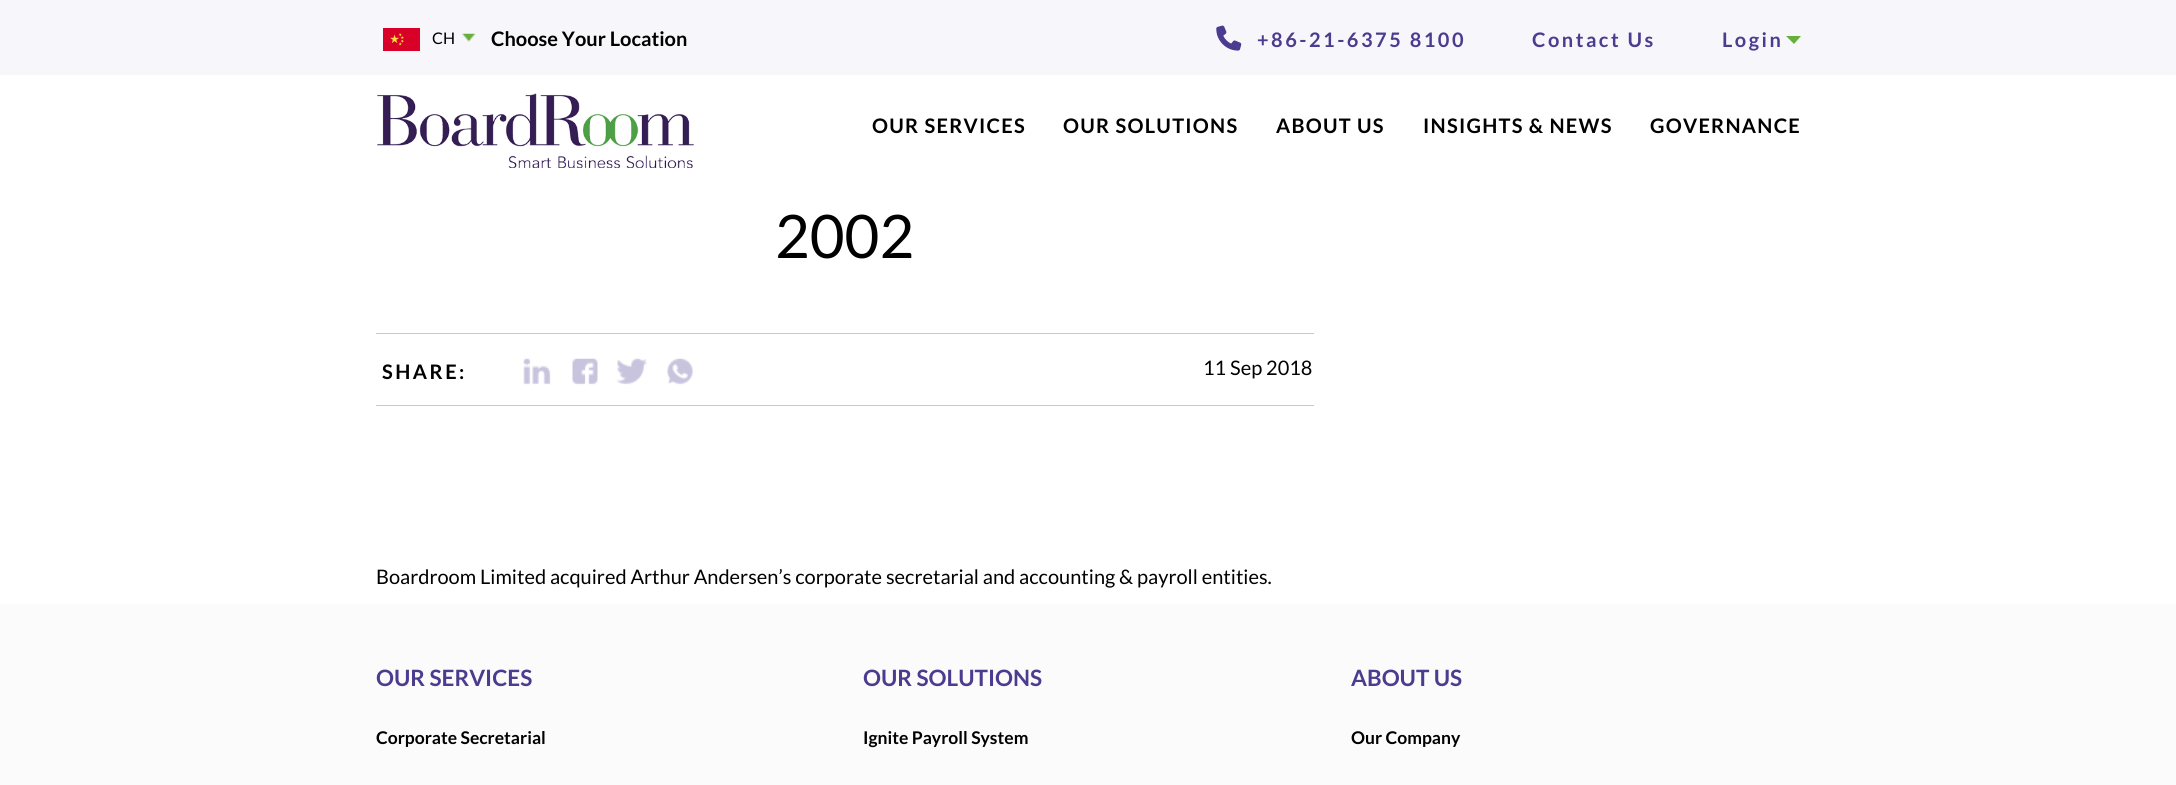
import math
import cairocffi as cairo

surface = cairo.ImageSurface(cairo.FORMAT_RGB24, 2176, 785)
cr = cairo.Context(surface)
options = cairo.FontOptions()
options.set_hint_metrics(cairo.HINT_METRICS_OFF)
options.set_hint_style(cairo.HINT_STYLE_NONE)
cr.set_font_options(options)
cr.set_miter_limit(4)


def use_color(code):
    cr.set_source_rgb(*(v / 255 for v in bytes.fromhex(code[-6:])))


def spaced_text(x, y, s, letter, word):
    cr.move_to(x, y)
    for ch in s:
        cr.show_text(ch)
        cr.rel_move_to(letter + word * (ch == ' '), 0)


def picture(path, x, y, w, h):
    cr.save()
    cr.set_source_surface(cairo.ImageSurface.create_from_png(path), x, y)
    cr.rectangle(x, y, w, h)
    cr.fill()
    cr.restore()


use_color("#ffffff")
cr.paint()
use_color("#f7f6fb")
cr.rectangle(0, 0, 2176, 75)
cr.fill()
picture("img1.png", 383, 28, 37, 23)
cr.select_font_face("Lato")
cr.set_font_size(16)
use_color("#000000")
cr.move_to(432, 44)
cr.show_text("CH")
picture("img2.png", 462, 33, 14, 9)
cr.select_font_face("Lato", cairo.FONT_SLANT_NORMAL, cairo.FONT_WEIGHT_BOLD)
cr.set_font_size(20)
cr.move_to(491, 46)
cr.show_text("Choose Your Location")
picture("img3.png", 1216, 25, 26, 26)
use_color("#4c3c8f")
spaced_text(1257, 47, "+86-21-6375 8100", 2.5, 0)
spaced_text(1532, 47, "Contact Us", 2.5, 0)
spaced_text(1722, 47, "Login", 2.5, 0)
use_color("#66ae3d")
cr.new_path()
cr.move_to(1786, 36)
cr.line_to(1801, 36)
cr.line_to(1794, 44)
cr.close_path()
cr.fill()
picture("img4.png", 377, 93, 317, 75)
use_color("#000000")
spaced_text(872, 133, "OUR SERVICES", 1.25, 0)
spaced_text(1063, 133, "OUR SOLUTIONS", 1.25, 0)
spaced_text(1276, 133, "ABOUT US", 1.25, 0)
spaced_text(1423, 133, "INSIGHTS & NEWS", 1.25, 0)
spaced_text(1650, 133, "GOVERNANCE", 1.25, 0)
cr.select_font_face("Lato")
cr.set_font_size(60)
cr.move_to(775, 258)
cr.show_text("2002")
use_color("#c9c4dd")
cr.rectangle(376, 333, 938, 1)
cr.fill()
cr.rectangle(376, 405, 938, 1)
cr.fill()
cr.select_font_face("Lato", cairo.FONT_SLANT_NORMAL, cairo.FONT_WEIGHT_BOLD)
cr.set_font_size(20)
use_color("#000000")
spaced_text(382, 379, "SHARE:", 2.5, 0)
picture("img5.png", 523, 358, 28, 27)
picture("img6.png", 572, 358, 26, 27)
picture("img7.png", 616, 358, 31, 27)
picture("img8.png", 667, 358, 26, 27)
cr.select_font_face("Lato")
cr.move_to(1203, 375)
cr.show_text("11 Sep 2018")
cr.move_to(376, 584)
cr.show_text("Boardroom Limited acquired Arthur Andersen’s corporate secretarial and accounting & payroll entities.")
use_color("#fbfbfb")
cr.rectangle(0, 604, 2176, 181)
cr.fill()
cr.select_font_face("Lato", cairo.FONT_SLANT_NORMAL, cairo.FONT_WEIGHT_BOLD)
cr.set_font_size(22.5)
use_color("#4c3c8f")
cr.move_to(376, 686)
cr.show_text("OUR SERVICES")
cr.set_font_size(17.5)
use_color("#000000")
cr.move_to(376, 744)
cr.show_text("Corporate Secretarial")
cr.set_font_size(22.5)
use_color("#4c3c8f")
cr.move_to(863, 686)
cr.show_text("OUR SOLUTIONS")
cr.set_font_size(17.5)
use_color("#000000")
cr.move_to(863, 744)
cr.show_text("Ignite Payroll System")
cr.set_font_size(22.5)
use_color("#4c3c8f")
cr.move_to(1351, 686)
cr.show_text("ABOUT US")
cr.set_font_size(17.5)
use_color("#000000")
cr.move_to(1351, 744)
cr.show_text("Our Company")
surface.write_to_png("result.png")
